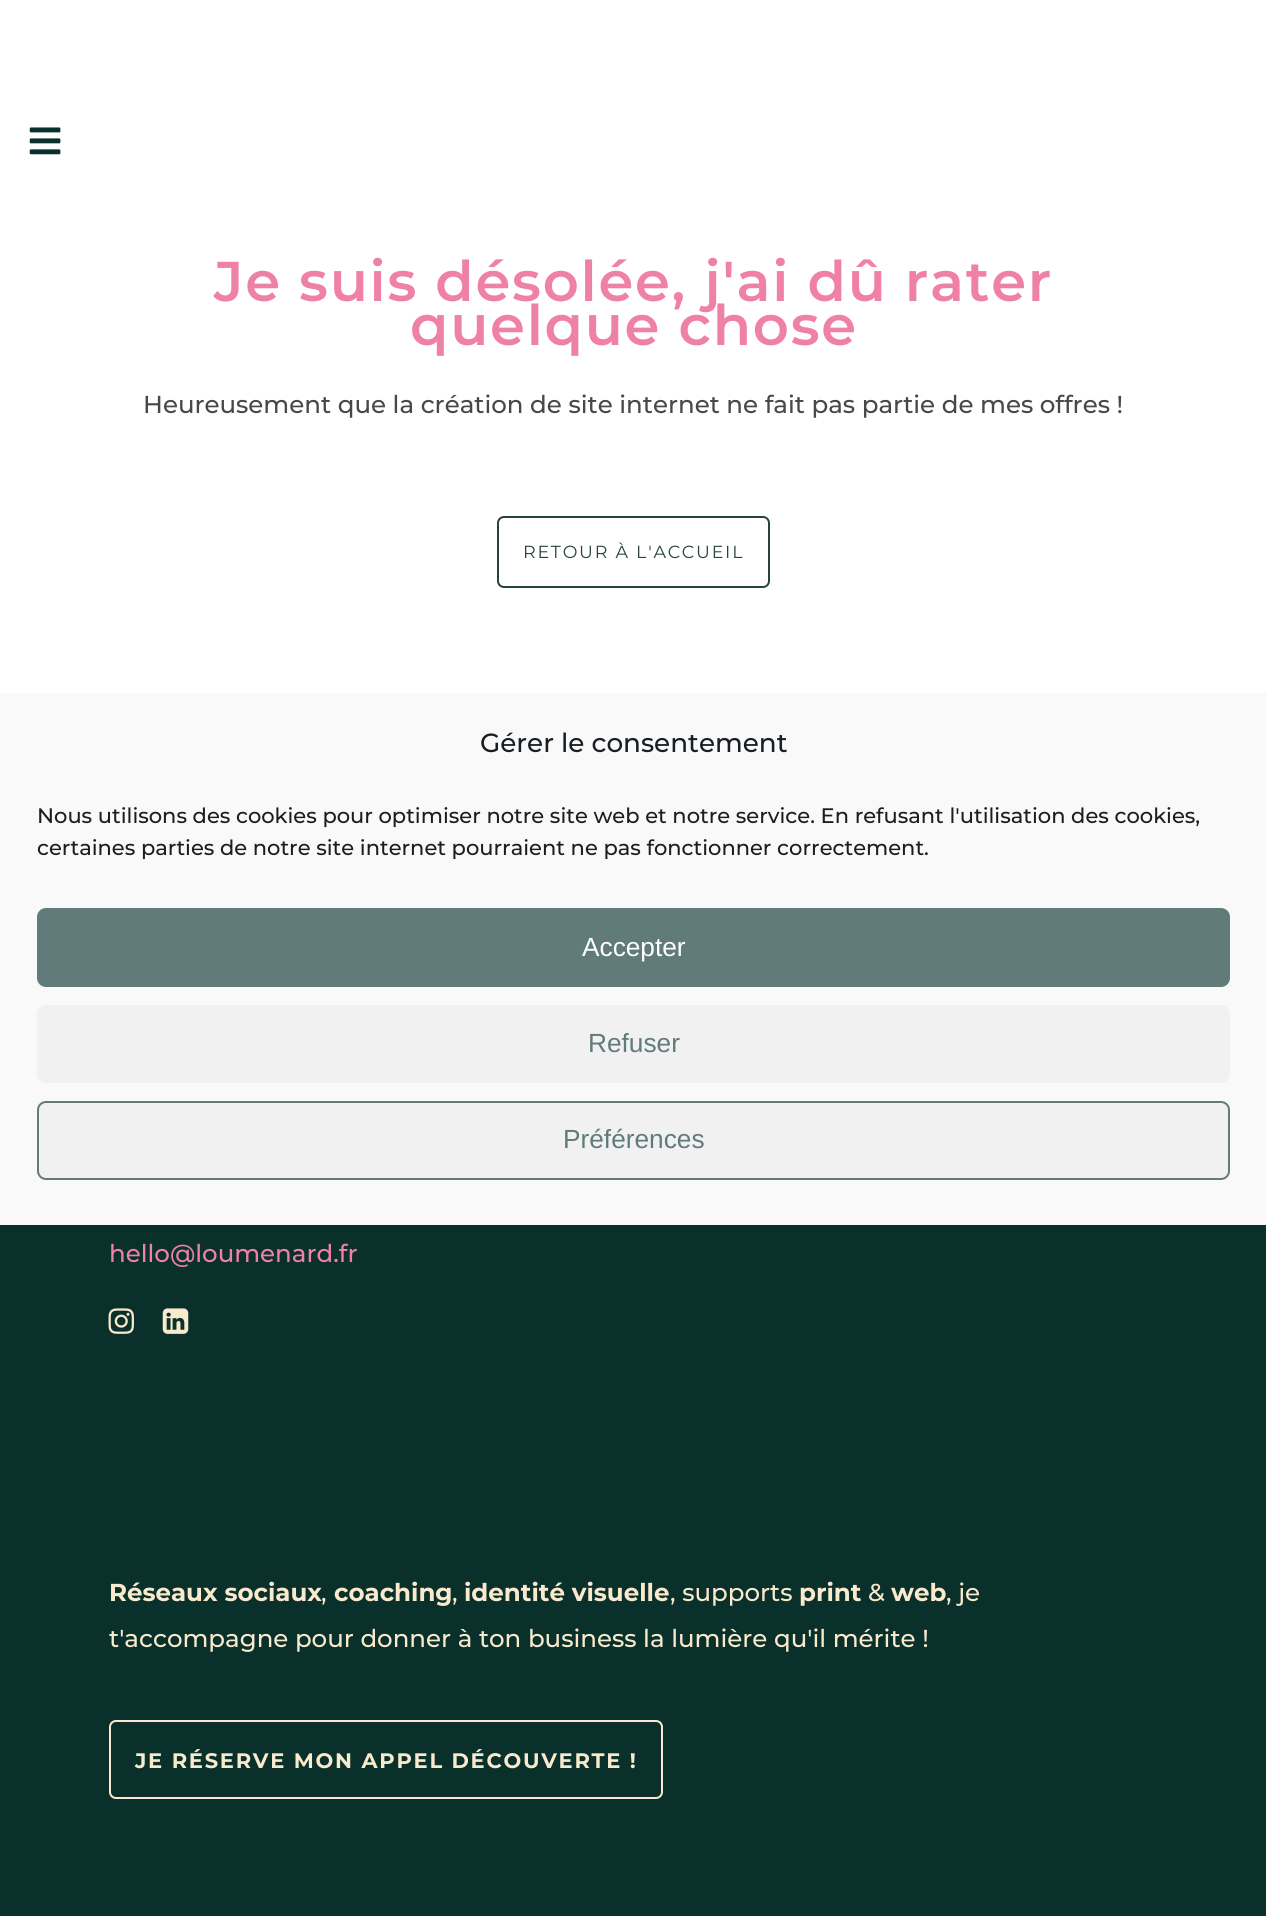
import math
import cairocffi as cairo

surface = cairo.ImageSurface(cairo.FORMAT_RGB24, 1266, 1916)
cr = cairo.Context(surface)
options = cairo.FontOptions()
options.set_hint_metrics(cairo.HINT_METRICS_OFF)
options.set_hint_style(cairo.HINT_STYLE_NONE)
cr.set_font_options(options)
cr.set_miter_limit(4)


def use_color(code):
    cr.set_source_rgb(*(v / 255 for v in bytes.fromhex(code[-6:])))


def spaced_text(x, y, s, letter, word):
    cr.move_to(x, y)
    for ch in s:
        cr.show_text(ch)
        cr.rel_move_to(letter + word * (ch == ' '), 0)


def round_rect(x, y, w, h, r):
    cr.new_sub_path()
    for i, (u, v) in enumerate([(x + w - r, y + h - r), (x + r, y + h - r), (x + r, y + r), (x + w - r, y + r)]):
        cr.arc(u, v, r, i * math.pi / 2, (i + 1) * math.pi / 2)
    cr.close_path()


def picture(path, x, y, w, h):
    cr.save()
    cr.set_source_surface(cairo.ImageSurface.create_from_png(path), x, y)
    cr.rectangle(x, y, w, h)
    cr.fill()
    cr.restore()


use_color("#ffffff")
cr.paint()
picture("img1.png", 29, 127, 32, 28)
cr.select_font_face("Montserrat SemiBold")
cr.set_font_size(56)
use_color("#ef80a7")
spaced_text(214, 301, "Je suis désolée, j'ai dû rater", 1.75, 0)
spaced_text(410, 345, "quelque chose", 1.75, 0)
cr.select_font_face("Montserrat Medium")
cr.set_font_size(24.5)
use_color("#484848")
cr.move_to(143, 413)
cr.show_text("Heureusement que la création de site internet ne fait pas partie de mes offres !")
round_rect(498, 517, 271, 70, 6)
use_color("#264340")
cr.stroke()
cr.select_font_face("Montserrat")
cr.set_font_size(17.5)
spaced_text(523, 558, "RETOUR À L'ACCUEIL", 1.75, 0)
use_color("#f9f9f9")
cr.rectangle(0, 693, 1266, 532)
cr.fill()
cr.select_font_face("Montserrat Medium")
cr.set_font_size(26.25)
use_color("#191e23")
cr.move_to(480, 752)
cr.show_text("Gérer le consentement")
cr.set_font_size(21)
cr.move_to(37, 823)
cr.show_text("Nous utilisons des cookies pour optimiser notre site web et notre service. En refusant l'utilisation des cookies,")
cr.move_to(37, 855)
cr.show_text("certaines parties de notre site internet pourraient ne pas fonctionner correctement.")
use_color("#607b79")
round_rect(38, 909, 1191, 77, 8)
cr.fill_preserve()
cr.stroke()
cr.select_font_face("Liberation Sans")
cr.set_font_size(26.25)
use_color("#ffffff")
cr.move_to(582, 956)
cr.show_text("Accepter")
use_color("#f1f1f1")
round_rect(37, 1005, 1193, 78, 9)
cr.fill()
use_color("#607b79")
cr.move_to(588, 1052)
cr.show_text("Refuser")
use_color("#f1f1f1")
round_rect(38, 1102, 1191, 77, 8)
cr.fill_preserve()
use_color("#607b79")
cr.stroke()
cr.move_to(563, 1148)
cr.show_text("Préférences")
use_color("#09302a")
cr.rectangle(0, 1225, 1266, 691)
cr.fill()
cr.select_font_face("Montserrat Medium")
cr.set_font_size(24.5)
use_color("#ef80a7")
cr.move_to(109, 1262)
cr.show_text("hello@loumenard.fr")
picture("img2.png", 108, 1308, 26, 26)
picture("img3.png", 162, 1308, 27, 26)
cr.select_font_face("Montserrat", cairo.FONT_SLANT_NORMAL, cairo.FONT_WEIGHT_BOLD)
use_color("#f9e9cd")
cr.move_to(109, 1601)
cr.show_text("Réseaux sociaux")
cr.select_font_face("Montserrat Medium")
cr.move_to(321, 1601)
cr.show_text(",")
cr.select_font_face("Montserrat", cairo.FONT_SLANT_NORMAL, cairo.FONT_WEIGHT_BOLD)
cr.move_to(334, 1601)
cr.show_text("coaching")
cr.select_font_face("Montserrat Medium")
cr.move_to(452, 1601)
cr.show_text(",")
cr.select_font_face("Montserrat", cairo.FONT_SLANT_NORMAL, cairo.FONT_WEIGHT_BOLD)
cr.move_to(464, 1601)
cr.show_text("identité visuelle")
cr.select_font_face("Montserrat Medium")
cr.move_to(670, 1601)
cr.show_text(", supports")
cr.select_font_face("Montserrat", cairo.FONT_SLANT_NORMAL, cairo.FONT_WEIGHT_BOLD)
cr.move_to(799, 1601)
cr.show_text("print")
cr.select_font_face("Montserrat Medium")
cr.move_to(868, 1601)
cr.show_text("&")
cr.select_font_face("Montserrat", cairo.FONT_SLANT_NORMAL, cairo.FONT_WEIGHT_BOLD)
cr.move_to(891, 1601)
cr.show_text("web")
cr.select_font_face("Montserrat Medium")
cr.move_to(946, 1601)
cr.show_text(", je")
cr.move_to(109, 1647)
cr.show_text("t'accompagne pour donner à ton business la lumière qu'il mérite !")
round_rect(110, 1721, 552, 77, 6)
cr.stroke()
cr.select_font_face("Montserrat", cairo.FONT_SLANT_NORMAL, cairo.FONT_WEIGHT_BOLD)
cr.set_font_size(21)
spaced_text(135, 1768, "JE RÉSERVE MON APPEL DÉCOUVERTE !", 1.75, 0)
surface.write_to_png("result.png")
